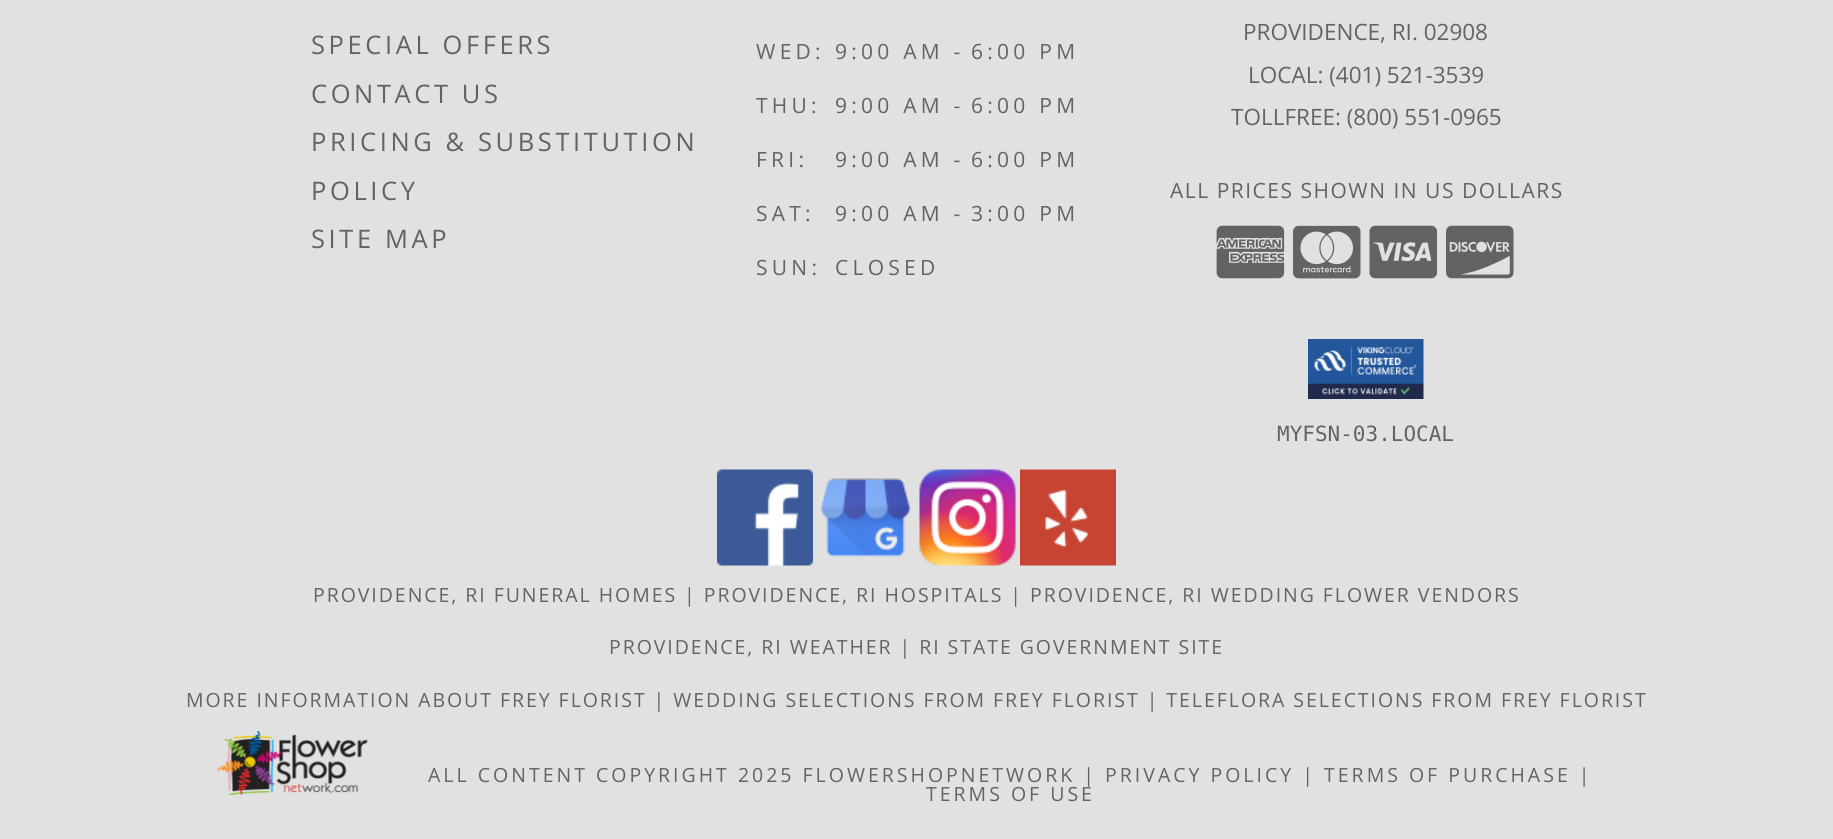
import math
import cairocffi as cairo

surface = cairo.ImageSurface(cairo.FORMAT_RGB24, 1833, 839)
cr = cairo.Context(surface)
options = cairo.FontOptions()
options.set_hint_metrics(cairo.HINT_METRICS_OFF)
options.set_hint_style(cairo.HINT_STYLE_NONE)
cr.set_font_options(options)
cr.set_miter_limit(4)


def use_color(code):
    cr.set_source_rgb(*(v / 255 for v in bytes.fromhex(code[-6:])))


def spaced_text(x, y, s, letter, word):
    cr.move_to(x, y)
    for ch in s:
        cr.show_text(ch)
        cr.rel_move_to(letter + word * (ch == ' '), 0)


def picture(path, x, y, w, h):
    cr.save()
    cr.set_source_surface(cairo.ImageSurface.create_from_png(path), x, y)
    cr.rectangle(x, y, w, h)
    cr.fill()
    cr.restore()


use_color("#e1e1e1")
cr.paint()
cr.select_font_face("Open Sans")
cr.set_font_size(25.5)
use_color("#636363")
spaced_text(311, 54, "SPECIAL OFFERS", 3.6, 0)
spaced_text(311, 103, "CONTACT US", 3.6, 0)
spaced_text(311, 151, "PRICING & SUBSTITUTION", 3.6, 0)
spaced_text(311, 200, "POLICY", 3.6, 0)
spaced_text(311, 248, "SITE MAP", 3.6, 0)
cr.set_font_size(21)
spaced_text(756, 59, "WED:", 4.25, 0)
spaced_text(835, 59, "9:00 AM -", 4.25, 0)
spaced_text(971, 59, "6:00 PM", 4.25, 0)
spaced_text(756, 113, "THU:", 4.25, 0)
spaced_text(835, 113, "9:00 AM -", 4.25, 0)
spaced_text(971, 113, "6:00 PM", 4.25, 0)
spaced_text(756, 167, "FRI:", 4.25, 0)
spaced_text(835, 167, "9:00 AM -", 4.25, 0)
spaced_text(971, 167, "6:00 PM", 4.25, 0)
spaced_text(756, 221, "SAT:", 4.25, 0)
spaced_text(835, 221, "9:00 AM -", 4.25, 0)
spaced_text(971, 221, "3:00 PM", 4.25, 0)
spaced_text(756, 275, "SUN:", 4.25, 0)
spaced_text(835, 275, "CLOSED", 4.25, 0)
cr.set_font_size(22.5)
cr.move_to(1243, 40)
cr.show_text("PROVIDENCE, RI. 02908")
cr.move_to(1248, 83)
cr.show_text("LOCAL: (401) 521-3539")
cr.move_to(1231, 125)
cr.show_text("TOLLFREE: (800) 551-0965")
cr.set_font_size(21)
spaced_text(1170, 198, "ALL PRICES SHOWN IN US DOLLARS", 1.5, 0)
picture("img1.png", 1216, 225, 69, 54)
picture("img2.png", 1293, 225, 68, 54)
picture("img3.png", 1369, 225, 68, 54)
picture("img4.png", 1446, 225, 68, 54)
picture("img5.png", 1308, 339, 116, 60)
cr.select_font_face("DejaVu Sans Mono")
cr.move_to(1277, 441)
cr.show_text("MYFSN-03.LOCAL")
picture("img6.png", 717, 469, 96, 97)
picture("img7.png", 820, 478, 91, 79)
picture("img8.png", 919, 469, 97, 97)
picture("img9.png", 1020, 469, 96, 97)
cr.select_font_face("Open Sans")
cr.set_font_size(19.5)
spaced_text(313, 602, "PROVIDENCE, RI FUNERAL HOMES | PROVIDENCE, RI HOSPITALS | PROVIDENCE, RI WEDDING FLOWER VENDORS", 1.95, 0)
spaced_text(609, 654, "PROVIDENCE, RI WEATHER | RI STATE GOVERNMENT SITE", 1.95, 0)
spaced_text(186, 707, "MORE INFORMATION ABOUT FREY FLORIST | WEDDING SELECTIONS FROM FREY FLORIST | TELEFLORA SELECTIONS FROM FREY FLORIST", 1.95, 0)
picture("img10.png", 217, 731, 151, 65)
spaced_text(428, 782, "ALL CONTENT COPYRIGHT 2025 FLOWERSHOPNETWORK | PRIVACY POLICY | TERMS OF PURCHASE |", 3, 0)
spaced_text(926, 801, "TERMS OF USE", 3, 0)
surface.write_to_png("result.png")
